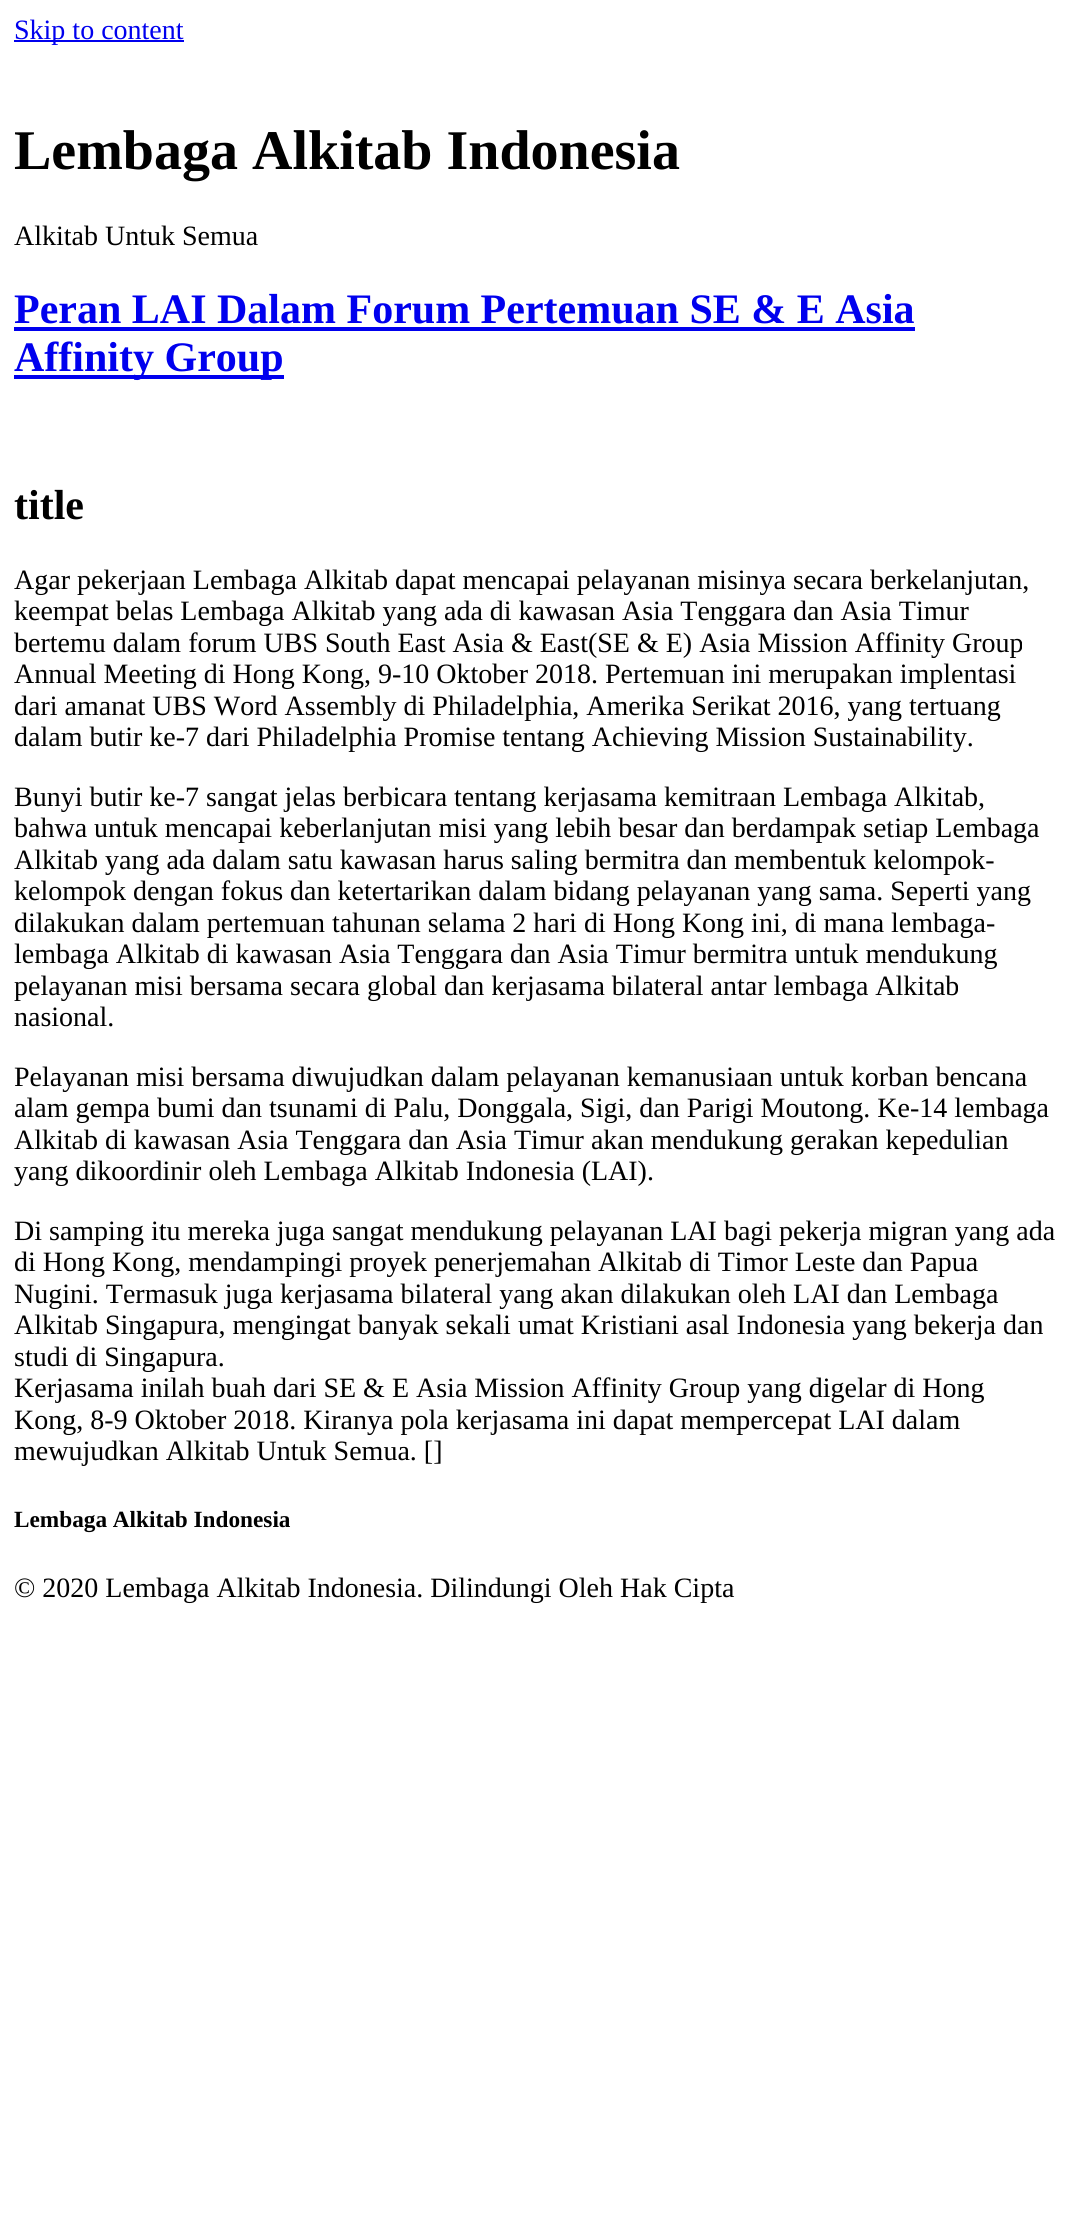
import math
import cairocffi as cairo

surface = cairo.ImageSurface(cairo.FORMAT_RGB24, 1074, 2225)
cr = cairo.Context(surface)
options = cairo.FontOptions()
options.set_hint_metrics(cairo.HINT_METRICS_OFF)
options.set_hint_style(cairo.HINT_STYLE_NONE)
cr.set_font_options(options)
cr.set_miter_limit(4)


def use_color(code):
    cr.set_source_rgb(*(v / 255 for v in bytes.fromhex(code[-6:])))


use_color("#ffffff")
cr.paint()
use_color("#0000ee")
cr.rectangle(14, 40, 170, 2)
cr.fill()
cr.select_font_face("Liberation Serif")
cr.set_font_size(28)
cr.move_to(14, 39)
cr.show_text("Skip to content")
cr.select_font_face("Liberation Serif", cairo.FONT_SLANT_NORMAL, cairo.FONT_WEIGHT_BOLD)
cr.set_font_size(56)
use_color("#000000")
cr.move_to(14, 169)
cr.show_text("Lembaga Alkitab Indonesia")
cr.select_font_face("Liberation Serif")
cr.set_font_size(28)
cr.move_to(14, 245)
cr.show_text("Alkitab Untuk Semua")
cr.select_font_face("Liberation Serif", cairo.FONT_SLANT_NORMAL, cairo.FONT_WEIGHT_BOLD)
cr.set_font_size(42)
use_color("#0000ee")
cr.move_to(14, 323)
cr.show_text("Peran LAI Dalam Forum Pertemuan SE & E Asia")
cr.rectangle(14, 327, 901, 4)
cr.fill()
cr.rectangle(14, 375, 270, 4)
cr.fill()
cr.move_to(14, 371)
cr.show_text("Affinity Group")
use_color("#000000")
cr.move_to(14, 519)
cr.show_text("title")
cr.select_font_face("Liberation Serif")
cr.set_font_size(28)
cr.move_to(14, 589)
cr.show_text("Agar pekerjaan Lembaga Alkitab dapat mencapai pelayanan misinya secara berkelanjutan,")
cr.move_to(14, 620)
cr.show_text("keempat belas Lembaga Alkitab yang ada di kawasan Asia Tenggara dan Asia Timur")
cr.move_to(14, 652)
cr.show_text("bertemu dalam forum UBS South East Asia & East(SE & E) Asia Mission Affinity Group")
cr.move_to(14, 683)
cr.show_text("Annual Meeting di Hong Kong, 9-10 Oktober 2018. Pertemuan ini merupakan implentasi")
cr.move_to(14, 715)
cr.show_text("dari amanat UBS Word Assembly di Philadelphia, Amerika Serikat 2016, yang tertuang")
cr.move_to(14, 746)
cr.show_text("dalam butir ke-7 dari Philadelphia Promise tentang Achieving Mission Sustainability.")
cr.move_to(14, 806)
cr.show_text("Bunyi butir ke-7 sangat jelas berbicara tentang kerjasama kemitraan Lembaga Alkitab,")
cr.move_to(14, 837)
cr.show_text("bahwa untuk mencapai keberlanjutan misi yang lebih besar dan berdampak setiap Lembaga")
cr.move_to(14, 869)
cr.show_text("Alkitab yang ada dalam satu kawasan harus saling bermitra dan membentuk kelompok-")
cr.move_to(14, 900)
cr.show_text("kelompok dengan fokus dan ketertarikan dalam bidang pelayanan yang sama. Seperti yang")
cr.move_to(14, 932)
cr.show_text("dilakukan dalam pertemuan tahunan selama 2 hari di Hong Kong ini, di mana lembaga-")
cr.move_to(14, 963)
cr.show_text("lembaga Alkitab di kawasan Asia Tenggara dan Asia Timur bermitra untuk mendukung")
cr.move_to(14, 995)
cr.show_text("pelayanan misi bersama secara global dan kerjasama bilateral antar lembaga Alkitab")
cr.move_to(14, 1026)
cr.show_text("nasional.")
cr.move_to(14, 1086)
cr.show_text("Pelayanan misi bersama diwujudkan dalam pelayanan kemanusiaan untuk korban bencana")
cr.move_to(14, 1117)
cr.show_text("alam gempa bumi dan tsunami di Palu, Donggala, Sigi, dan Parigi Moutong. Ke-14 lembaga")
cr.move_to(14, 1149)
cr.show_text("Alkitab di kawasan Asia Tenggara dan Asia Timur akan mendukung gerakan kepedulian")
cr.move_to(14, 1180)
cr.show_text("yang dikoordinir oleh Lembaga Alkitab Indonesia (LAI).")
cr.move_to(14, 1240)
cr.show_text("Di samping itu mereka juga sangat mendukung pelayanan LAI bagi pekerja migran yang ada")
cr.move_to(14, 1271)
cr.show_text("di Hong Kong, mendampingi proyek penerjemahan Alkitab di Timor Leste dan Papua")
cr.move_to(14, 1303)
cr.show_text("Nugini. Termasuk juga kerjasama bilateral yang akan dilakukan oleh LAI dan Lembaga")
cr.move_to(14, 1334)
cr.show_text("Alkitab Singapura, mengingat banyak sekali umat Kristiani asal Indonesia yang bekerja dan")
cr.move_to(14, 1366)
cr.show_text("studi di Singapura.")
cr.move_to(14, 1397)
cr.show_text("Kerjasama inilah buah dari SE & E Asia Mission Affinity Group yang digelar di Hong")
cr.move_to(14, 1429)
cr.show_text("Kong, 8-9 Oktober 2018. Kiranya pola kerjasama ini dapat mempercepat LAI dalam")
cr.move_to(14, 1460)
cr.show_text("mewujudkan Alkitab Untuk Semua. []")
cr.select_font_face("Liberation Serif", cairo.FONT_SLANT_NORMAL, cairo.FONT_WEIGHT_BOLD)
cr.set_font_size(23.25)
cr.move_to(14, 1527)
cr.show_text("Lembaga Alkitab Indonesia")
cr.select_font_face("Liberation Serif")
cr.set_font_size(28)
cr.move_to(14, 1597)
cr.show_text("© 2020 Lembaga Alkitab Indonesia. Dilindungi Oleh Hak Cipta")
surface.write_to_png("result.png")
